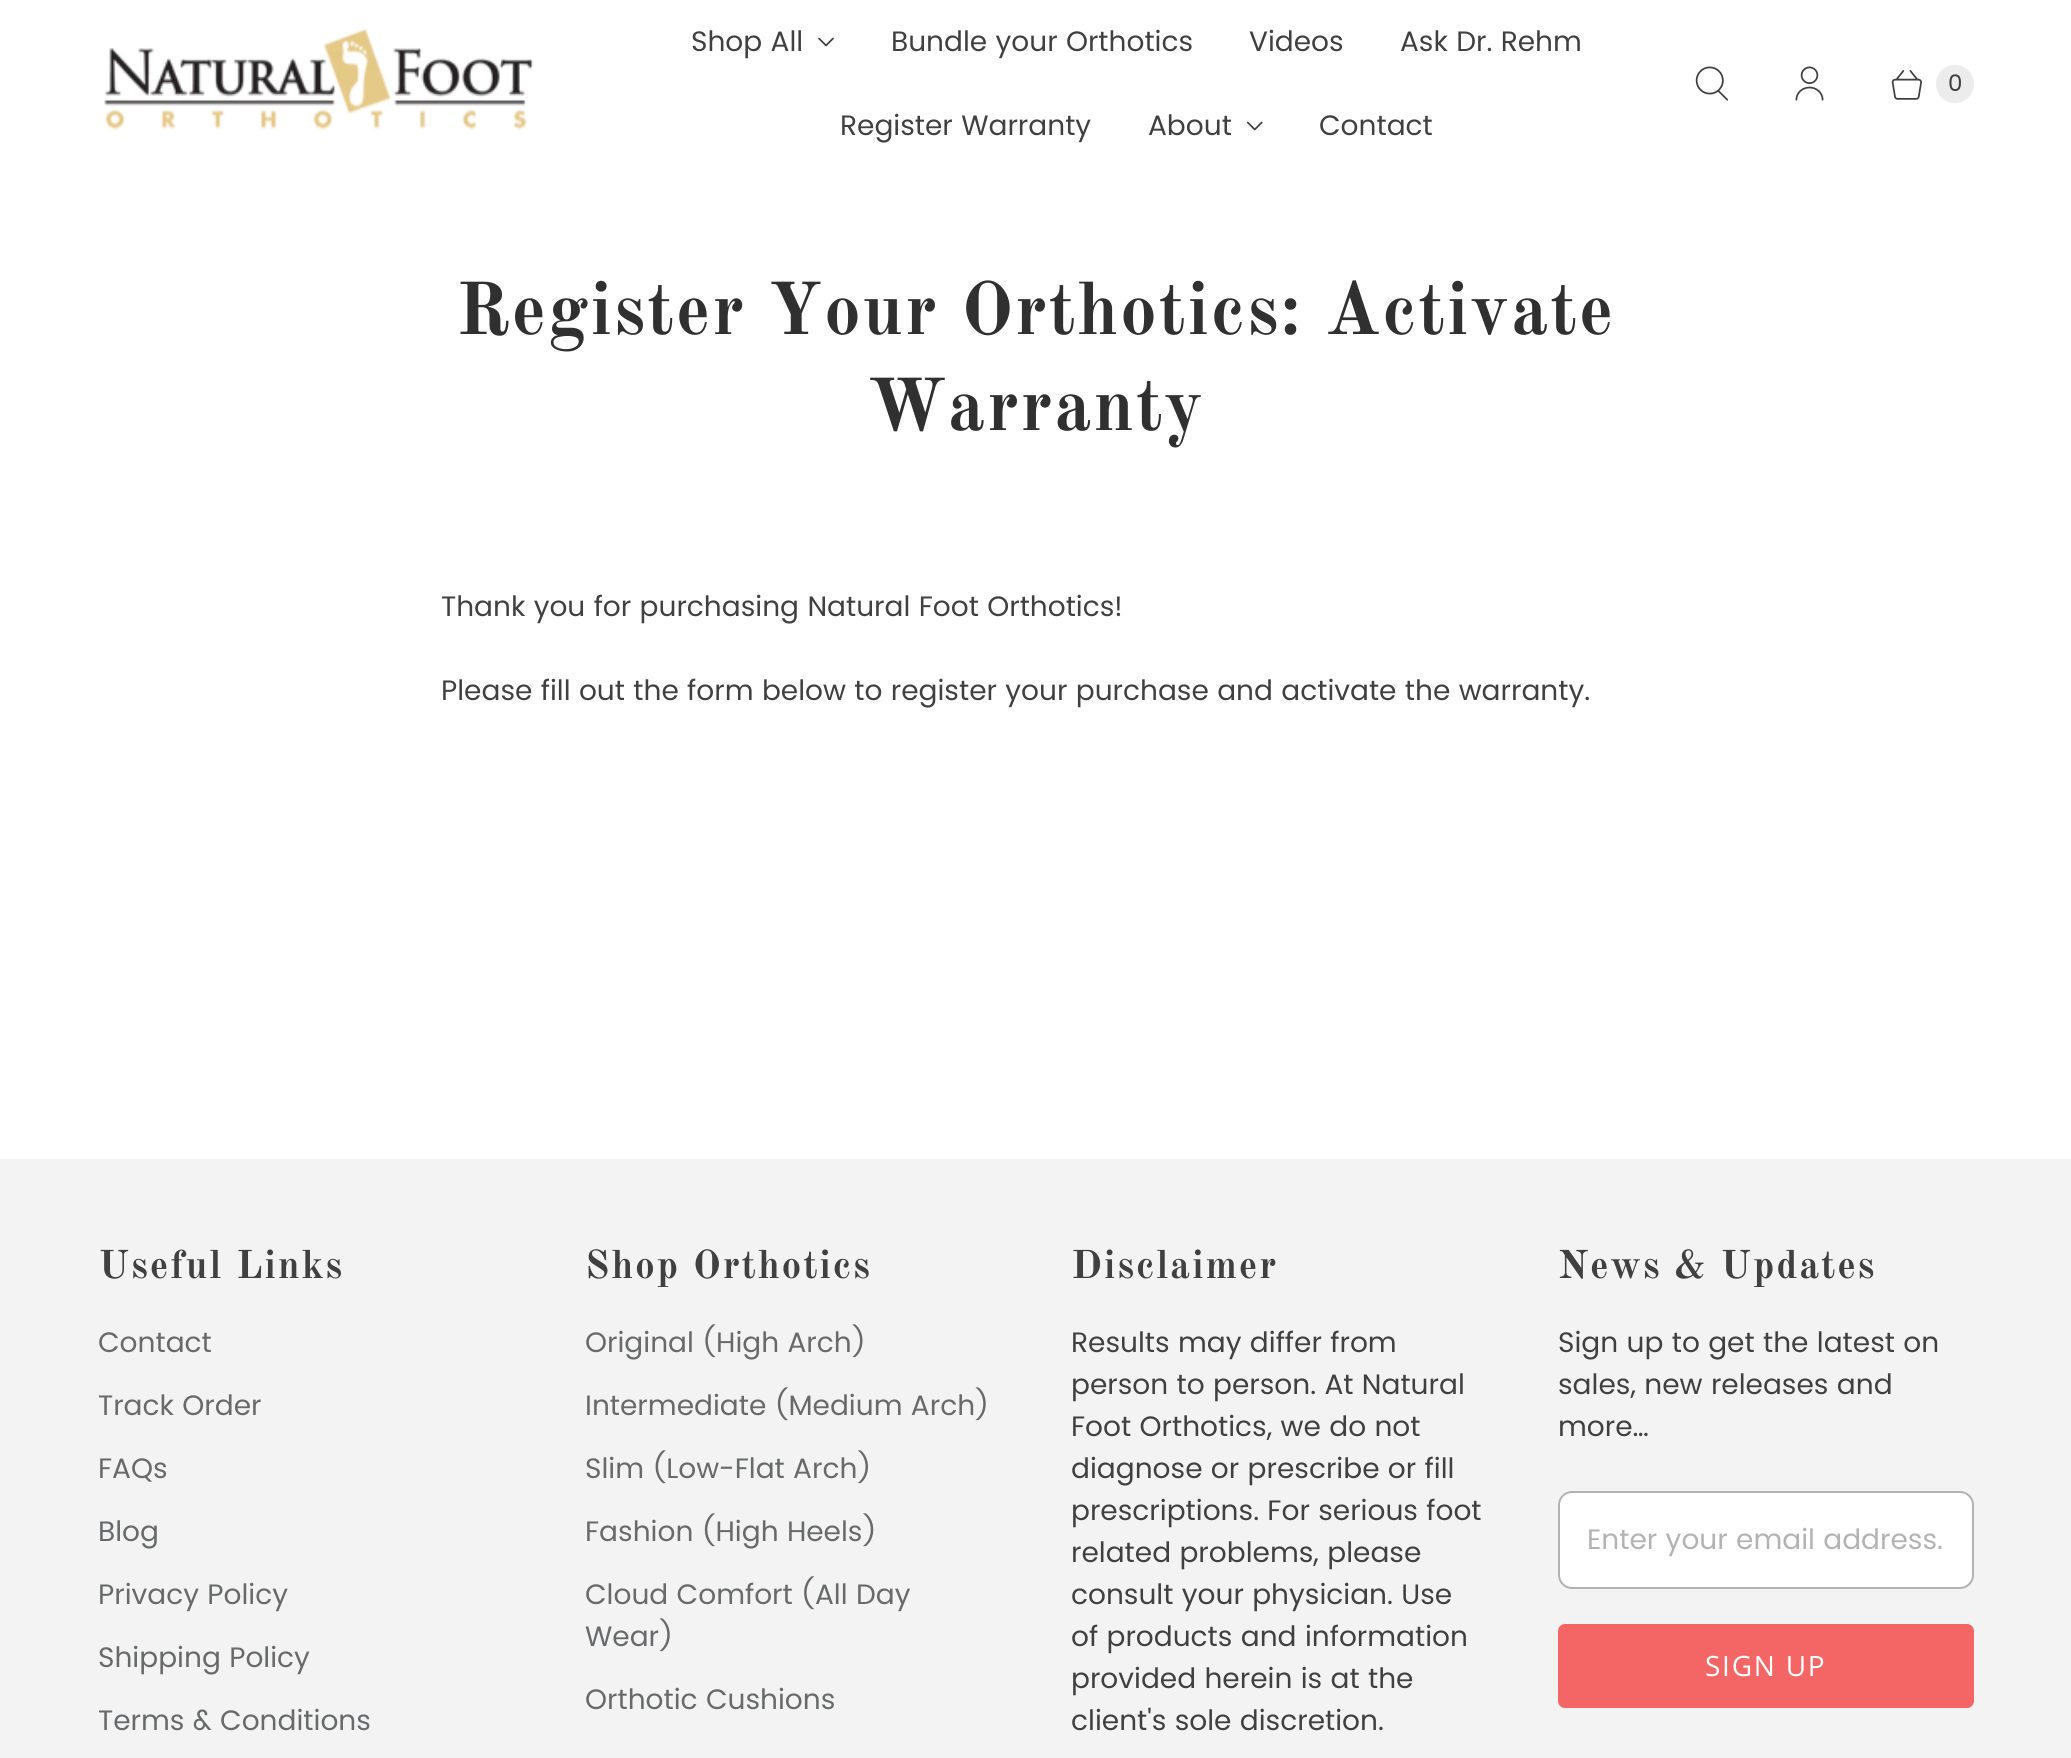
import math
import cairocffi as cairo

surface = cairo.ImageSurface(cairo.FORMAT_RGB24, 2071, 1758)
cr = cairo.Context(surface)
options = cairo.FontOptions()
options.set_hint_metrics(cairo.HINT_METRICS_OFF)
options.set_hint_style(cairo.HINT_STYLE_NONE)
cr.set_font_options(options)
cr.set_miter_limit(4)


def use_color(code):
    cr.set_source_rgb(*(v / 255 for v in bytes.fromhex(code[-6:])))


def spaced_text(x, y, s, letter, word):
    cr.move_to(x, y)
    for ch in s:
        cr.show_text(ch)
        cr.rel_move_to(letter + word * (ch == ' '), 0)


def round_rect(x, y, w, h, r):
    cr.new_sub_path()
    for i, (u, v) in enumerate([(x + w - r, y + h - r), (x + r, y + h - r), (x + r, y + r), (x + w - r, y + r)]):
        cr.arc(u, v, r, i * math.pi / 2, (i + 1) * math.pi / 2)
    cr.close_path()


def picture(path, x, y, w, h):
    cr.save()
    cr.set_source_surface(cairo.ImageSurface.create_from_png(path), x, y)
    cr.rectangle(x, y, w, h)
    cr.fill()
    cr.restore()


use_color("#ffffff")
cr.paint()
picture("img1.png", 104, 29, 430, 102)
cr.select_font_face("Poppins")
cr.set_font_size(28)
use_color("#404040")
cr.move_to(691, 51)
cr.show_text("Shop All")
picture("img2.png", 818, 37, 16, 10)
cr.move_to(891, 51)
cr.show_text("Bundle your Orthotics")
cr.move_to(1249, 51)
cr.show_text("Videos")
cr.move_to(1400, 51)
cr.show_text("Ask Dr. Rehm")
cr.move_to(840, 135)
cr.show_text("Register Warranty")
cr.move_to(1148, 135)
cr.show_text("About")
picture("img3.png", 1246, 121, 17, 10)
cr.move_to(1319, 135)
cr.show_text("Contact")
picture("img4.png", 1695, 66, 34, 35)
picture("img5.png", 1795, 66, 29, 35)
picture("img6.png", 1891, 70, 31, 30)
use_color("#ececec")
cr.arc(1955, 84, 19, 0, 2 * math.pi)
cr.fill()
cr.set_font_size(23)
use_color("#404040")
cr.move_to(1948, 91)
cr.show_text("0")
cr.select_font_face("Old Standard TT", cairo.FONT_SLANT_NORMAL, cairo.FONT_WEIGHT_BOLD)
cr.set_font_size(73.5)
use_color("#303030")
spaced_text(456, 334, "Register Your Orthotics: Activate", 1.75, 0)
spaced_text(867, 430, "Warranty", 1.75, 0)
cr.select_font_face("Poppins")
cr.set_font_size(28)
use_color("#404040")
cr.move_to(441, 616)
cr.show_text("Thank you for purchasing Natural Foot Orthotics!")
cr.move_to(441, 700)
cr.show_text("Please fill out the form below to register your purchase and activate the warranty.")
use_color("#f3f3f3")
cr.rectangle(0, 1159, 2071, 599)
cr.fill()
cr.select_font_face("Old Standard TT", cairo.FONT_SLANT_NORMAL, cairo.FONT_WEIGHT_BOLD)
cr.set_font_size(39.5)
use_color("#404040")
spaced_text(98, 1278, "Useful Links", 1.75, 0)
cr.select_font_face("Poppins")
cr.set_font_size(28)
use_color("#67696a")
cr.move_to(98, 1352)
cr.show_text("Contact")
cr.move_to(98, 1415)
cr.show_text("Track Order")
cr.move_to(98, 1478)
cr.show_text("FAQs")
cr.move_to(98, 1541)
cr.show_text("Blog")
cr.move_to(98, 1604)
cr.show_text("Privacy Policy")
cr.move_to(98, 1667)
cr.show_text("Shipping Policy")
cr.move_to(98, 1730)
cr.show_text("Terms & Conditions")
cr.select_font_face("Old Standard TT", cairo.FONT_SLANT_NORMAL, cairo.FONT_WEIGHT_BOLD)
cr.set_font_size(39.5)
use_color("#404040")
spaced_text(585, 1278, "Shop Orthotics", 1.75, 0)
cr.select_font_face("Poppins")
cr.set_font_size(28)
use_color("#67696a")
cr.move_to(585, 1352)
cr.show_text("Original (High Arch)")
cr.move_to(585, 1415)
cr.show_text("Intermediate (Medium Arch)")
cr.move_to(585, 1478)
cr.show_text("Slim (Low-Flat Arch)")
cr.move_to(585, 1541)
cr.show_text("Fashion (High Heels)")
cr.move_to(585, 1604)
cr.show_text("Cloud Comfort (All Day")
cr.move_to(585, 1646)
cr.show_text("Wear)")
cr.move_to(585, 1709)
cr.show_text("Orthotic Cushions")
cr.select_font_face("Old Standard TT", cairo.FONT_SLANT_NORMAL, cairo.FONT_WEIGHT_BOLD)
cr.set_font_size(39.5)
use_color("#404040")
spaced_text(1071, 1278, "Disclaimer", 1.75, 0)
cr.select_font_face("Poppins")
cr.set_font_size(28)
cr.move_to(1071, 1352)
cr.show_text("Results may differ from")
cr.move_to(1071, 1394)
cr.show_text("person to person. At Natural")
cr.move_to(1071, 1436)
cr.show_text("Foot Orthotics, we do not")
cr.move_to(1071, 1478)
cr.show_text("diagnose or prescribe or fill")
cr.move_to(1071, 1520)
cr.show_text("prescriptions. For serious foot")
cr.move_to(1071, 1562)
cr.show_text("related problems, please")
cr.move_to(1071, 1604)
cr.show_text("consult your physician. Use")
cr.move_to(1071, 1646)
cr.show_text("of products and information")
cr.move_to(1071, 1688)
cr.show_text("provided herein is at the")
cr.move_to(1071, 1730)
cr.show_text("client's sole discretion.")
cr.select_font_face("Old Standard TT", cairo.FONT_SLANT_NORMAL, cairo.FONT_WEIGHT_BOLD)
cr.set_font_size(39.5)
spaced_text(1558, 1278, "News & Updates", 1.75, 0)
cr.select_font_face("Poppins")
cr.set_font_size(28)
cr.move_to(1558, 1352)
cr.show_text("Sign up to get the latest on")
cr.move_to(1558, 1394)
cr.show_text("sales, new releases and")
cr.move_to(1558, 1436)
cr.show_text("more…")
use_color("#ffffff")
round_rect(1558, 1491, 416, 98, 14)
cr.fill()
round_rect(1559, 1492, 414, 96, 13)
cr.set_source_rgba(0.251, 0.251, 0.251, 0.4)
cr.stroke()
use_color("#b3b3b3")
cr.move_to(1587, 1549)
cr.show_text("Enter your email address.")
use_color("#f46666")
round_rect(1559, 1625, 414, 82, 6)
cr.fill_preserve()
cr.stroke()
cr.select_font_face("Open Sans")
use_color("#ffffff")
spaced_text(1705, 1676, "SIGN UP", 1.75, 0)
surface.write_to_png("result.png")
